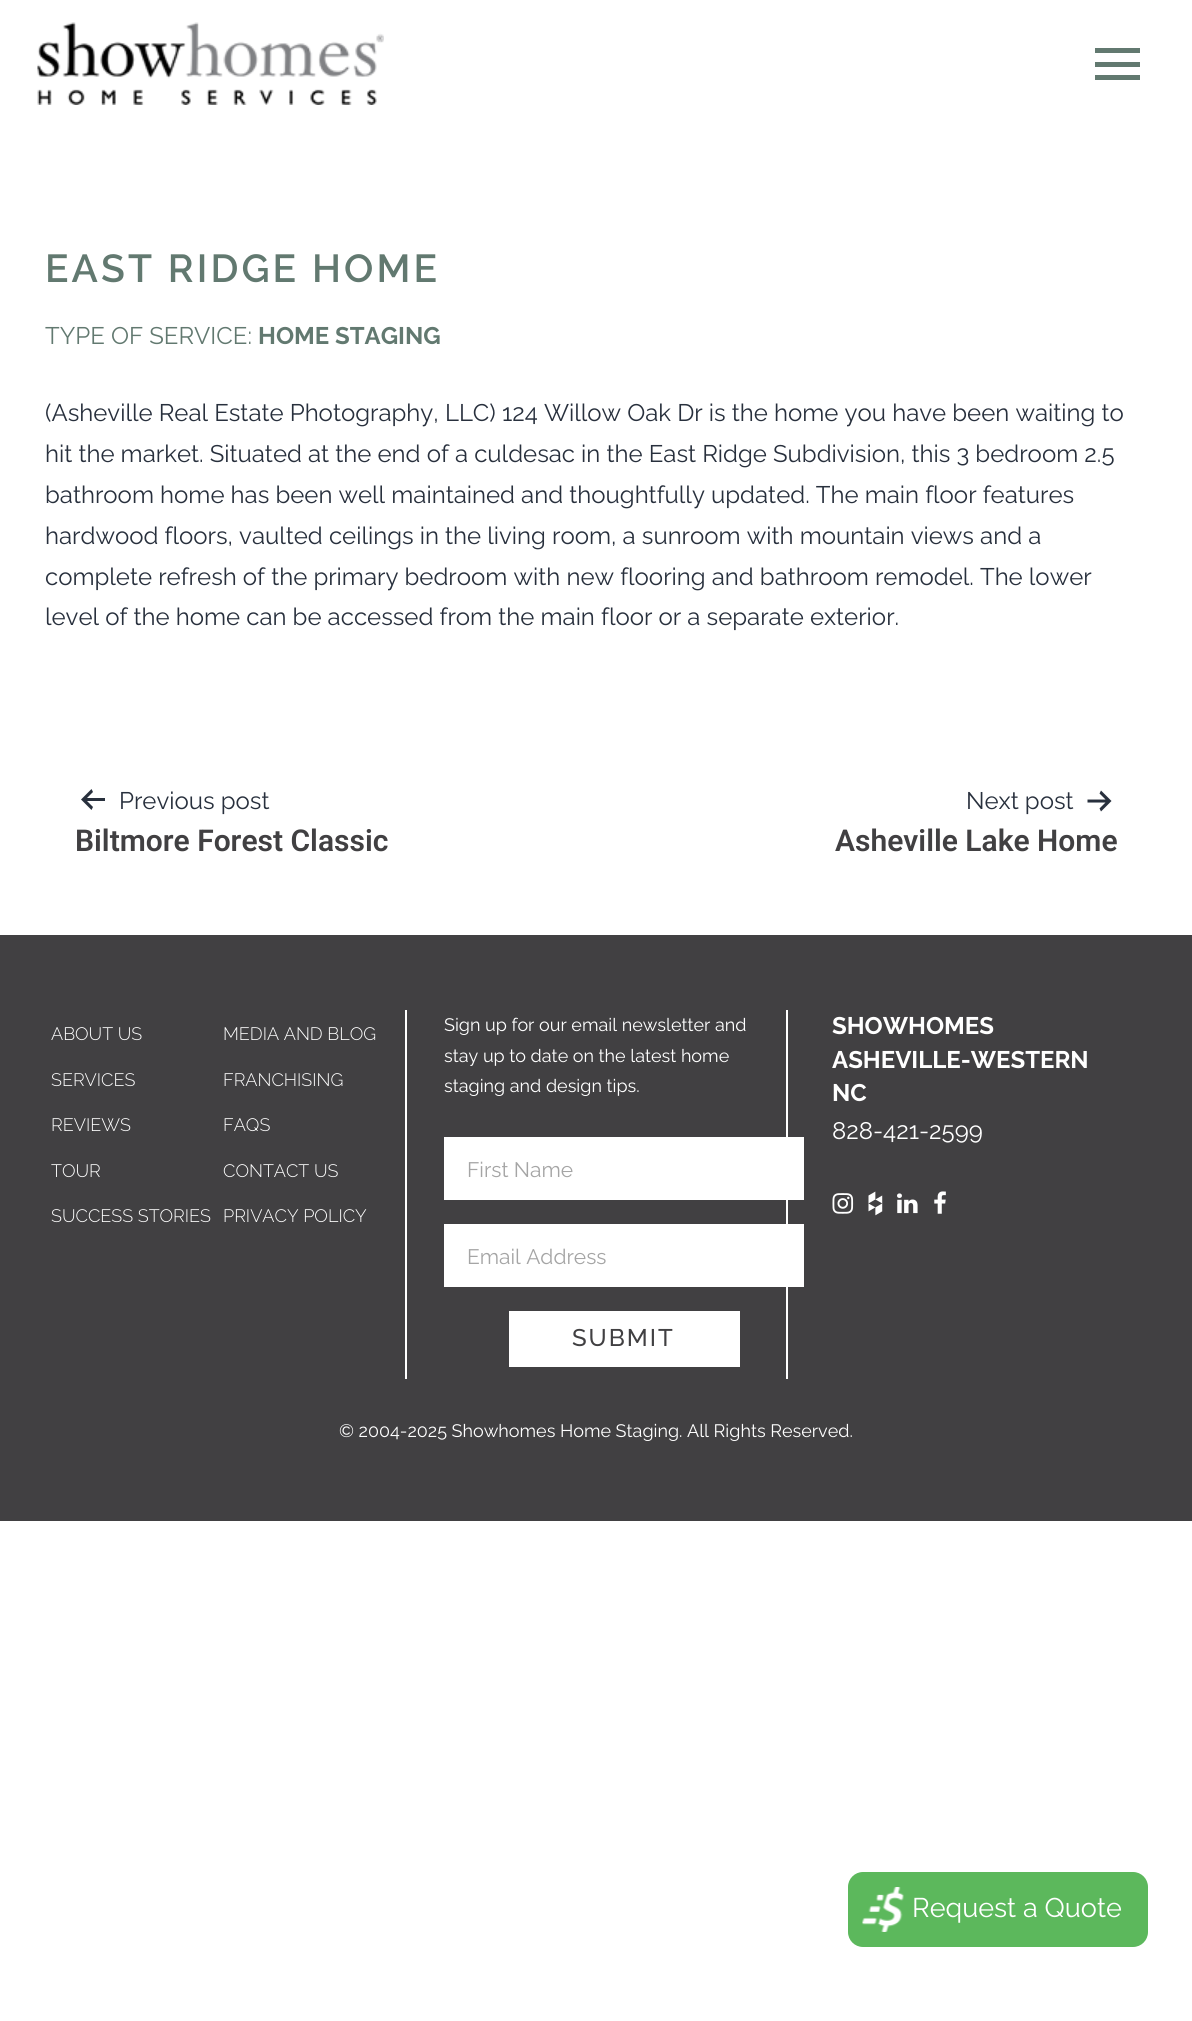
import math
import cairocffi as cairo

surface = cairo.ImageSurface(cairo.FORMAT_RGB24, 1192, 2021)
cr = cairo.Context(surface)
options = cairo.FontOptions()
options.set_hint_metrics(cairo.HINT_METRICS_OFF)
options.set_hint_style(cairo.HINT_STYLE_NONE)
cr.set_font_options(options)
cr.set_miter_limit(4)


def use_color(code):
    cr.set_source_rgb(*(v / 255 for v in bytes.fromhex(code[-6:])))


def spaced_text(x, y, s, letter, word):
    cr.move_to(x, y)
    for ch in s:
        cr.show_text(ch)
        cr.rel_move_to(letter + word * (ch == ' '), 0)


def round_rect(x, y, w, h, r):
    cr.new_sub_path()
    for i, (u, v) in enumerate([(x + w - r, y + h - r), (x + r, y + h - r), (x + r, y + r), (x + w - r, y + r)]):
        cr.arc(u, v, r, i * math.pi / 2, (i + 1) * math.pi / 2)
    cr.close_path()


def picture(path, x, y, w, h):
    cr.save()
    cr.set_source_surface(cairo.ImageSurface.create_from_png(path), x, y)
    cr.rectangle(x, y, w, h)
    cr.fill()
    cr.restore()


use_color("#ffffff")
cr.paint()
picture("img1.png", 37, 22, 347, 83)
use_color("#627970")
cr.rectangle(1095, 48, 45, 5)
cr.fill()
cr.rectangle(1095, 62, 45, 5)
cr.fill()
cr.rectangle(1095, 75, 45, 5)
cr.fill()
cr.select_font_face("Raleway SemiBold")
cr.set_font_size(39)
spaced_text(45, 282, "EAST RIDGE HOME", 3.1, 0)
cr.select_font_face("Raleway")
cr.set_font_size(24)
cr.move_to(45, 344)
cr.show_text("TYPE OF SERVICE:")
cr.select_font_face("Raleway", cairo.FONT_SLANT_NORMAL, cairo.FONT_WEIGHT_BOLD)
cr.move_to(258, 344)
cr.show_text("HOME STAGING")
cr.select_font_face("Raleway")
use_color("#28303d")
cr.move_to(45, 421)
cr.show_text("(Asheville Real Estate Photography, LLC) 124 Willow Oak Dr is the home you have been waiting to")
cr.move_to(45, 462)
cr.show_text("hit the market. Situated at the end of a culdesac in the East Ridge Subdivision, this 3 bedroom 2.5")
cr.move_to(45, 503)
cr.show_text("bathroom home has been well maintained and thoughtfully updated. The main floor features")
cr.move_to(45, 544)
cr.show_text("hardwood floors, vaulted ceilings in the living room, a sunroom with mountain views and a")
cr.move_to(45, 585)
cr.show_text("complete refresh of the primary bedroom with new flooring and bathroom remodel. The lower")
cr.move_to(45, 625)
cr.show_text("level of the home can be accessed from the main floor or a separate exterior.")
picture("img2.png", 81, 789, 24, 21)
cr.move_to(119, 809)
cr.show_text("Previous post")
cr.select_font_face("Roboto SemiBold")
cr.set_font_size(30)
use_color("#414042")
cr.move_to(75, 851)
cr.show_text("Biltmore Forest Classic")
cr.select_font_face("Raleway")
cr.set_font_size(24)
use_color("#28303d")
cr.move_to(966, 809)
cr.show_text("Next post")
picture("img3.png", 1087, 790, 25, 22)
cr.select_font_face("Roboto SemiBold")
cr.set_font_size(30)
use_color("#414042")
cr.move_to(835, 851)
cr.show_text("Asheville Lake Home")
cr.rectangle(0, 935, 1192, 586)
cr.fill()
cr.select_font_face("Raleway Light")
cr.set_font_size(18)
use_color("#ffffff")
cr.move_to(51, 1040)
cr.show_text("ABOUT US")
cr.move_to(51, 1086)
cr.show_text("SERVICES")
cr.move_to(51, 1131)
cr.show_text("REVIEWS")
cr.move_to(51, 1177)
cr.show_text("TOUR")
cr.move_to(51, 1222)
cr.show_text("SUCCESS STORIES")
cr.move_to(223, 1040)
cr.show_text("MEDIA AND BLOG")
cr.move_to(223, 1086)
cr.show_text("FRANCHISING")
cr.move_to(223, 1131)
cr.show_text("FAQS")
cr.move_to(223, 1177)
cr.show_text("CONTACT US")
cr.move_to(223, 1222)
cr.show_text("PRIVACY POLICY")
cr.rectangle(786, 1010, 2, 369)
cr.fill()
cr.rectangle(405, 1010, 2, 369)
cr.fill()
cr.select_font_face("Raleway")
cr.move_to(444, 1031)
cr.show_text("Sign up for our email newsletter and")
cr.move_to(444, 1062)
cr.show_text("stay up to date on the latest home")
cr.move_to(444, 1092)
cr.show_text("staging and design tips.")
cr.rectangle(444, 1137, 360, 63)
cr.fill()
cr.set_font_size(21)
use_color("#a5a5a5")
cr.move_to(467, 1177)
cr.show_text("First Name")
use_color("#ffffff")
cr.rectangle(444, 1224, 360, 63)
cr.fill()
use_color("#a5a5a5")
cr.move_to(467, 1264)
cr.show_text("Email Address")
use_color("#ffffff")
cr.rectangle(509, 1311, 231, 56)
cr.fill()
cr.select_font_face("Raleway Medium")
cr.set_font_size(24)
use_color("#414042")
spaced_text(572, 1346, "SUBMIT", 2, 0)
cr.select_font_face("Raleway", cairo.FONT_SLANT_NORMAL, cairo.FONT_WEIGHT_BOLD)
use_color("#ffffff")
cr.move_to(832, 1034)
cr.show_text("SHOWHOMES")
cr.move_to(832, 1068)
cr.show_text("ASHEVILLE-WESTERN")
cr.move_to(832, 1101)
cr.show_text("NC")
cr.select_font_face("Raleway")
cr.move_to(832, 1139)
cr.show_text("828-421-2599")
picture("img4.png", 832, 1193, 22, 21)
picture("img5.png", 868, 1191, 15, 25)
picture("img6.png", 897, 1193, 21, 21)
picture("img7.png", 934, 1191, 12, 23)
cr.set_font_size(18)
cr.move_to(339, 1437)
cr.show_text("© 2004-2025 Showhomes Home Staging. All Rights Reserved.")
use_color("#5cb85c")
round_rect(848, 1872, 300, 75, 15)
cr.fill()
picture("img8.png", 862, 1887, 42, 45)
cr.set_font_size(27)
use_color("#ffffff")
cr.move_to(912, 1917)
cr.show_text("Request a Quote")
surface.write_to_png("result.png")
